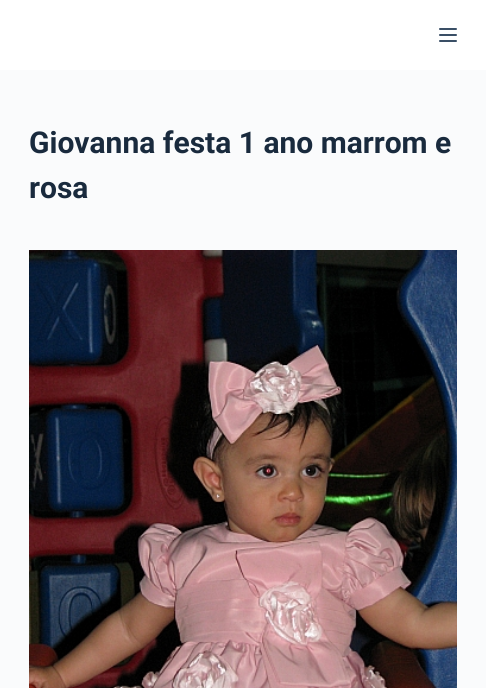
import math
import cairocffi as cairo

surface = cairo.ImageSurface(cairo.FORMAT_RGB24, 486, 688)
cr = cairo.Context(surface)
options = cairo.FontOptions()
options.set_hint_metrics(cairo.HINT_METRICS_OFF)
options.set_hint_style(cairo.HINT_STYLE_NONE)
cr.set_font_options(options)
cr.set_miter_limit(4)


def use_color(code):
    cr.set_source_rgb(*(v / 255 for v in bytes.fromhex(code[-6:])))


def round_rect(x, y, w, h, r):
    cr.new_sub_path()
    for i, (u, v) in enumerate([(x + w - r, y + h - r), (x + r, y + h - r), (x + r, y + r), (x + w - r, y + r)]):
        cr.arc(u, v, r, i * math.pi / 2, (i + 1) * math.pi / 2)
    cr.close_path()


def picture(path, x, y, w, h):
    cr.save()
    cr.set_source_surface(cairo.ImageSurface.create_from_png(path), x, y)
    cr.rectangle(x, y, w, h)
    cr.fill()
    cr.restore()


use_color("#fafbfc")
cr.paint()
use_color("#ffffff")
cr.rectangle(0, 0, 486, 70)
cr.fill()
use_color("#3a4f66")
round_rect(439, 28, 18, 2, 1)
cr.fill()
round_rect(439, 34, 18, 2, 1)
cr.fill()
round_rect(439, 40, 18, 2, 1)
cr.fill()
cr.select_font_face("Roboto", cairo.FONT_SLANT_NORMAL, cairo.FONT_WEIGHT_BOLD)
cr.set_font_size(30)
use_color("#192a3d")
cr.move_to(29, 153)
cr.show_text("Giovanna festa 1 ano marrom e")
cr.move_to(29, 198)
cr.show_text("rosa")
picture("img1.png", 29, 250, 428, 438)
surface.write_to_png("result.png")
